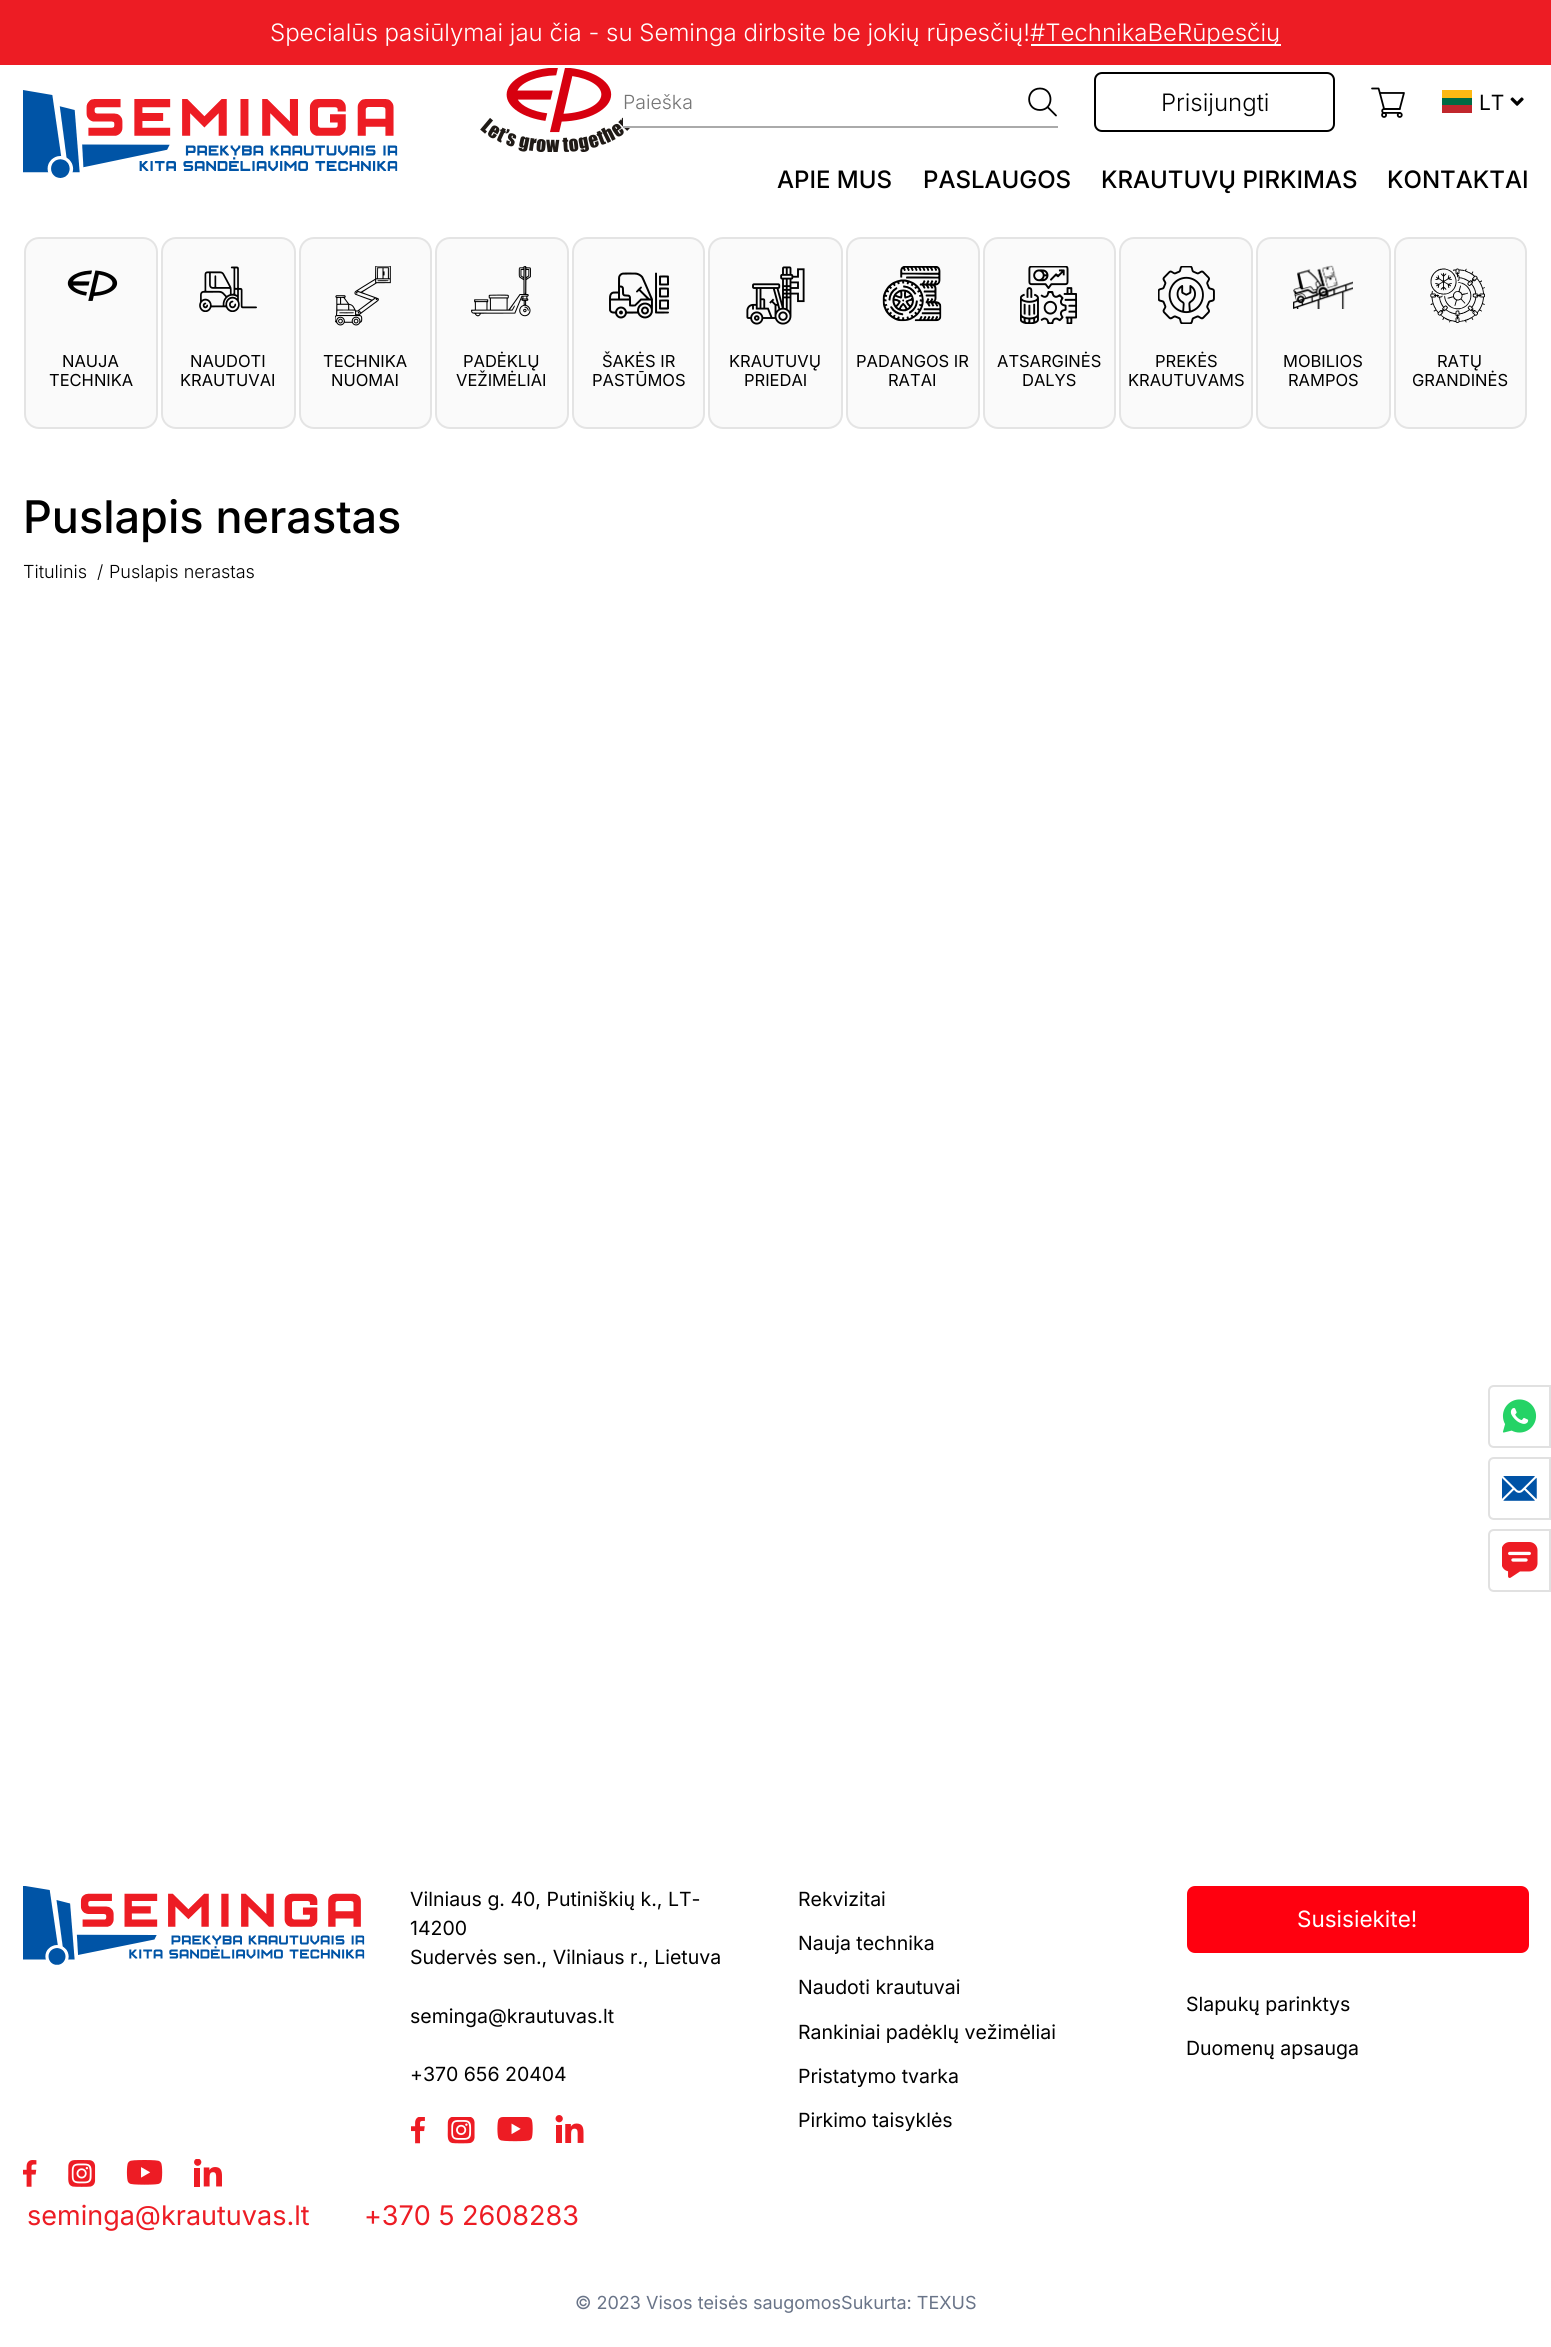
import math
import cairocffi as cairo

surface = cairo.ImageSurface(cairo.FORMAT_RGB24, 1551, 2347)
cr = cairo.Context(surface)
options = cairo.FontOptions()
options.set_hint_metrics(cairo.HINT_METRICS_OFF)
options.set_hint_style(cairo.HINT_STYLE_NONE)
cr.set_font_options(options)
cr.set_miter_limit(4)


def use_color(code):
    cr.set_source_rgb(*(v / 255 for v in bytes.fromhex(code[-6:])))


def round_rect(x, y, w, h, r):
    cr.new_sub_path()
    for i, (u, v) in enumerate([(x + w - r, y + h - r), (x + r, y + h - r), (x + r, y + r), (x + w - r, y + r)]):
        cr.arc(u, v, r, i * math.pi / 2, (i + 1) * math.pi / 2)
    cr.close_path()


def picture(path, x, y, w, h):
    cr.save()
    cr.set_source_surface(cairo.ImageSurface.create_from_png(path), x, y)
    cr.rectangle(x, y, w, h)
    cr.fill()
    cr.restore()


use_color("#ffffff")
cr.paint()
use_color("#ed1c24")
cr.rectangle(0, 0, 1551, 65)
cr.fill()
cr.select_font_face("Inter Light")
cr.set_font_size(24)
use_color("#ffffff")
cr.move_to(270, 41)
cr.show_text("Specialūs pasiūlymai jau čia - su Seminga dirbsite be jokių rūpesčių!")
cr.rectangle(1031, 44, 250, 2)
cr.fill()
cr.move_to(1030, 41)
cr.show_text("#TechnikaBeRūpesčių")
picture("img1.png", 23, 90, 375, 88)
picture("img2.png", 480, 68, 150, 84)
use_color("#aaaaaa")
cr.rectangle(623, 126, 435, 2)
cr.fill()
use_color("#ffffff")
cr.rectangle(623, 118, 5, 8)
cr.fill()
cr.set_font_size(19.5)
use_color("#757575")
cr.move_to(623, 109)
cr.show_text("Paieška")
cr.new_path()
cr.move_to(1040, 110)
cr.curve_to(1025.5, 110, 1025.5, 88.5, 1040, 88.5)
cr.curve_to(1054, 88.5, 1054, 110, 1040, 110)
cr.close_path()
cr.move_to(1056, 115.5)
cr.line_to(1047.5, 107)
use_color("#000000")
cr.set_line_width(1.8)
cr.set_line_cap(cairo.LINE_CAP_ROUND)
cr.set_line_join(cairo.LINE_JOIN_ROUND)
cr.stroke()
round_rect(1095, 73, 239, 58, 7)
cr.set_line_width(2)
cr.set_line_cap(cairo.LINE_CAP_BUTT)
cr.set_line_join(cairo.LINE_JOIN_MITER)
cr.stroke()
cr.set_font_size(24)
cr.move_to(1161, 111)
cr.show_text("Prisijungti")
picture("img3.png", 1371, 87, 34, 31)
use_color("#006a44")
cr.rectangle(1442, 98, 30, 7)
cr.fill()
use_color("#c1272d")
cr.rectangle(1442, 105, 30, 8)
cr.fill()
use_color("#fdb913")
cr.rectangle(1442, 90, 30, 8)
cr.fill()
cr.select_font_face("Inter")
cr.set_font_size(21)
use_color("#000000")
cr.move_to(1479, 110)
cr.show_text("LT")
picture("img4.png", 1510, 97, 14, 9)
cr.select_font_face("Inter Medium")
cr.set_font_size(24)
cr.move_to(777, 188)
cr.show_text("APIE MUS")
cr.move_to(923, 188)
cr.show_text("PASLAUGOS")
cr.move_to(1101, 188)
cr.show_text("KRAUTUVŲ PIRKIMAS")
cr.move_to(1387, 188)
cr.show_text("KONTAKTAI")
use_color("#fafafa")
round_rect(25, 238, 132, 190, 14)
cr.fill_preserve()
use_color("#e4e4e4")
cr.stroke()
picture("img5.png", 67, 270, 51, 31)
cr.select_font_face("Inter")
cr.set_font_size(16.5)
use_color("#000000")
cr.move_to(62, 367)
cr.show_text("NAUJA")
cr.move_to(49, 386)
cr.show_text("TECHNIKA")
use_color("#fafafa")
round_rect(162, 238, 133, 190, 14)
cr.fill_preserve()
use_color("#e4e4e4")
cr.stroke()
picture("img6.png", 199, 266, 58, 46)
use_color("#000000")
cr.move_to(190, 367)
cr.show_text("NAUDOTI")
cr.move_to(180, 386)
cr.show_text("KRAUTUVAI")
use_color("#fafafa")
round_rect(300, 238, 131, 190, 14)
cr.fill_preserve()
use_color("#e4e4e4")
cr.stroke()
picture("img7.png", 335, 266, 56, 60)
use_color("#000000")
cr.move_to(323, 367)
cr.show_text("TECHNIKA")
cr.move_to(331, 386)
cr.show_text("NUOMAI")
use_color("#fafafa")
round_rect(436, 238, 132, 190, 14)
cr.fill_preserve()
use_color("#e4e4e4")
cr.stroke()
picture("img8.png", 471, 266, 60, 51)
use_color("#000000")
cr.move_to(463, 367)
cr.show_text("PADĖKLŲ")
cr.move_to(456, 386)
cr.show_text("VEŽIMĖLIAI")
use_color("#fafafa")
round_rect(573, 238, 131, 190, 14)
cr.fill_preserve()
use_color("#e4e4e4")
cr.stroke()
picture("img9.png", 609, 272, 60, 47)
use_color("#000000")
cr.move_to(602, 367)
cr.show_text("ŠAKĖS IR")
cr.move_to(592, 386)
cr.show_text("PASTŪMOS")
use_color("#fafafa")
round_rect(709, 238, 133, 190, 14)
cr.fill_preserve()
use_color("#e4e4e4")
cr.stroke()
picture("img10.png", 746, 266, 59, 59)
use_color("#000000")
cr.move_to(729, 367)
cr.show_text("KRAUTUVŲ")
cr.move_to(744, 386)
cr.show_text("PRIEDAI")
use_color("#fafafa")
round_rect(847, 238, 132, 190, 14)
cr.fill_preserve()
use_color("#e4e4e4")
cr.stroke()
picture("img11.png", 882, 266, 60, 56)
use_color("#000000")
cr.move_to(856, 367)
cr.show_text("PADANGOS IR")
cr.move_to(888, 386)
cr.show_text("RATAI")
use_color("#fafafa")
round_rect(984, 238, 131, 190, 14)
cr.fill_preserve()
use_color("#e4e4e4")
cr.stroke()
picture("img12.png", 1020, 266, 57, 58)
use_color("#000000")
cr.move_to(997, 367)
cr.show_text("ATSARGINĖS")
cr.move_to(1022, 386)
cr.show_text("DALYS")
use_color("#fafafa")
round_rect(1120, 238, 132, 190, 14)
cr.fill_preserve()
use_color("#e4e4e4")
cr.stroke()
picture("img13.png", 1158, 266, 57, 58)
use_color("#000000")
cr.move_to(1155, 367)
cr.show_text("PREKĖS")
cr.move_to(1128, 386)
cr.show_text("KRAUTUVAMS")
use_color("#fafafa")
round_rect(1257, 238, 133, 190, 14)
cr.fill_preserve()
use_color("#e4e4e4")
cr.stroke()
picture("img14.png", 1293, 265, 60, 44)
use_color("#000000")
cr.move_to(1283, 367)
cr.show_text("MOBILIOS")
cr.move_to(1288, 386)
cr.show_text("RAMPOS")
use_color("#fafafa")
round_rect(1395, 238, 131, 190, 14)
cr.fill_preserve()
use_color("#e4e4e4")
cr.stroke()
picture("img15.png", 1430, 268, 55, 55)
use_color("#000000")
cr.move_to(1437, 367)
cr.show_text("RATŲ")
cr.move_to(1412, 386)
cr.show_text("GRANDINĖS")
cr.select_font_face("Inter Medium")
cr.set_font_size(45)
cr.move_to(23, 533)
cr.show_text("Puslapis nerastas")
cr.select_font_face("Inter Light")
cr.set_font_size(18)
cr.move_to(23, 578)
cr.show_text("Titulinis")
cr.move_to(97, 578)
cr.show_text("/")
cr.move_to(109, 578)
cr.show_text("Puslapis nerastas")
cr.new_path()
cr.move_to(1494, 1386)
cr.line_to(1550, 1386)
cr.line_to(1550, 1447)
cr.line_to(1494, 1447)
cr.curve_to(1491, 1447, 1489, 1445, 1489, 1442)
cr.line_to(1489, 1391)
cr.curve_to(1489, 1388, 1491, 1386, 1494, 1386)
cr.close_path()
use_color("#e1e1e1")
cr.stroke()
picture("img16.png", 1502, 1399, 35, 34)
cr.new_path()
cr.move_to(1494, 1458)
cr.line_to(1550, 1458)
cr.line_to(1550, 1519)
cr.line_to(1494, 1519)
cr.curve_to(1491, 1519, 1489, 1517, 1489, 1514)
cr.line_to(1489, 1463)
cr.curve_to(1489, 1460, 1491, 1458, 1494, 1458)
cr.close_path()
cr.stroke()
picture("img17.png", 1502, 1476, 35, 25)
cr.new_path()
cr.move_to(1494, 1530)
cr.line_to(1550, 1530)
cr.line_to(1550, 1591)
cr.line_to(1494, 1591)
cr.curve_to(1491, 1591, 1489, 1589, 1489, 1586)
cr.line_to(1489, 1535)
cr.curve_to(1489, 1532, 1491, 1530, 1494, 1530)
cr.close_path()
cr.stroke()
picture("img18.png", 1502, 1542, 36, 36)
picture("img19.png", 23, 1886, 342, 79)
cr.select_font_face("Inter")
cr.set_font_size(19.5)
use_color("#000000")
cr.move_to(410, 1906)
cr.show_text("Vilniaus g. 40, Putiniškių k., LT-")
cr.move_to(410, 1935)
cr.show_text("14200")
cr.move_to(410, 1964)
cr.show_text("Sudervės sen., Vilniaus r., Lietuva")
cr.move_to(410, 2023)
cr.show_text("seminga@krautuvas.lt")
cr.move_to(410, 2081)
cr.show_text("+370 656 20404")
picture("img20.png", 411, 2117, 14, 27)
picture("img21.png", 447, 2117, 28, 27)
picture("img22.png", 497, 2117, 36, 25)
picture("img23.png", 555, 2115, 29, 28)
cr.move_to(798, 1906)
cr.show_text("Rekvizitai")
cr.move_to(798, 1950)
cr.show_text("Nauja technika")
cr.move_to(798, 1994)
cr.show_text("Naudoti krautuvai")
cr.move_to(798, 2039)
cr.show_text("Rankiniai padėklų vežimėliai")
cr.move_to(798, 2083)
cr.show_text("Pristatymo tvarka")
cr.move_to(798, 2127)
cr.show_text("Pirkimo taisyklės")
use_color("#ff000f")
round_rect(1187, 1886, 342, 67, 8)
cr.fill()
cr.set_font_size(22.5)
use_color("#ffffff")
cr.move_to(1297, 1927)
cr.show_text("Susisiekite!")
cr.set_font_size(19.5)
use_color("#000000")
cr.move_to(1186, 2011)
cr.show_text("Slapukų parinktys")
cr.move_to(1186, 2055)
cr.show_text("Duomenų apsauga")
picture("img24.png", 23, 2160, 14, 27)
picture("img25.png", 68, 2160, 28, 27)
picture("img26.png", 126, 2160, 37, 25)
picture("img27.png", 194, 2159, 28, 28)
cr.set_font_size(27)
use_color("#ed1c24")
cr.move_to(27, 2225)
cr.show_text("seminga@krautuvas.lt")
cr.move_to(364, 2225)
cr.show_text("+370 5 2608283")
cr.set_font_size(18)
use_color("#697488")
cr.move_to(575, 2309)
cr.show_text("© 2023 Visos teisės saugomosSukurta: TEXUS")
surface.write_to_png("result.png")
